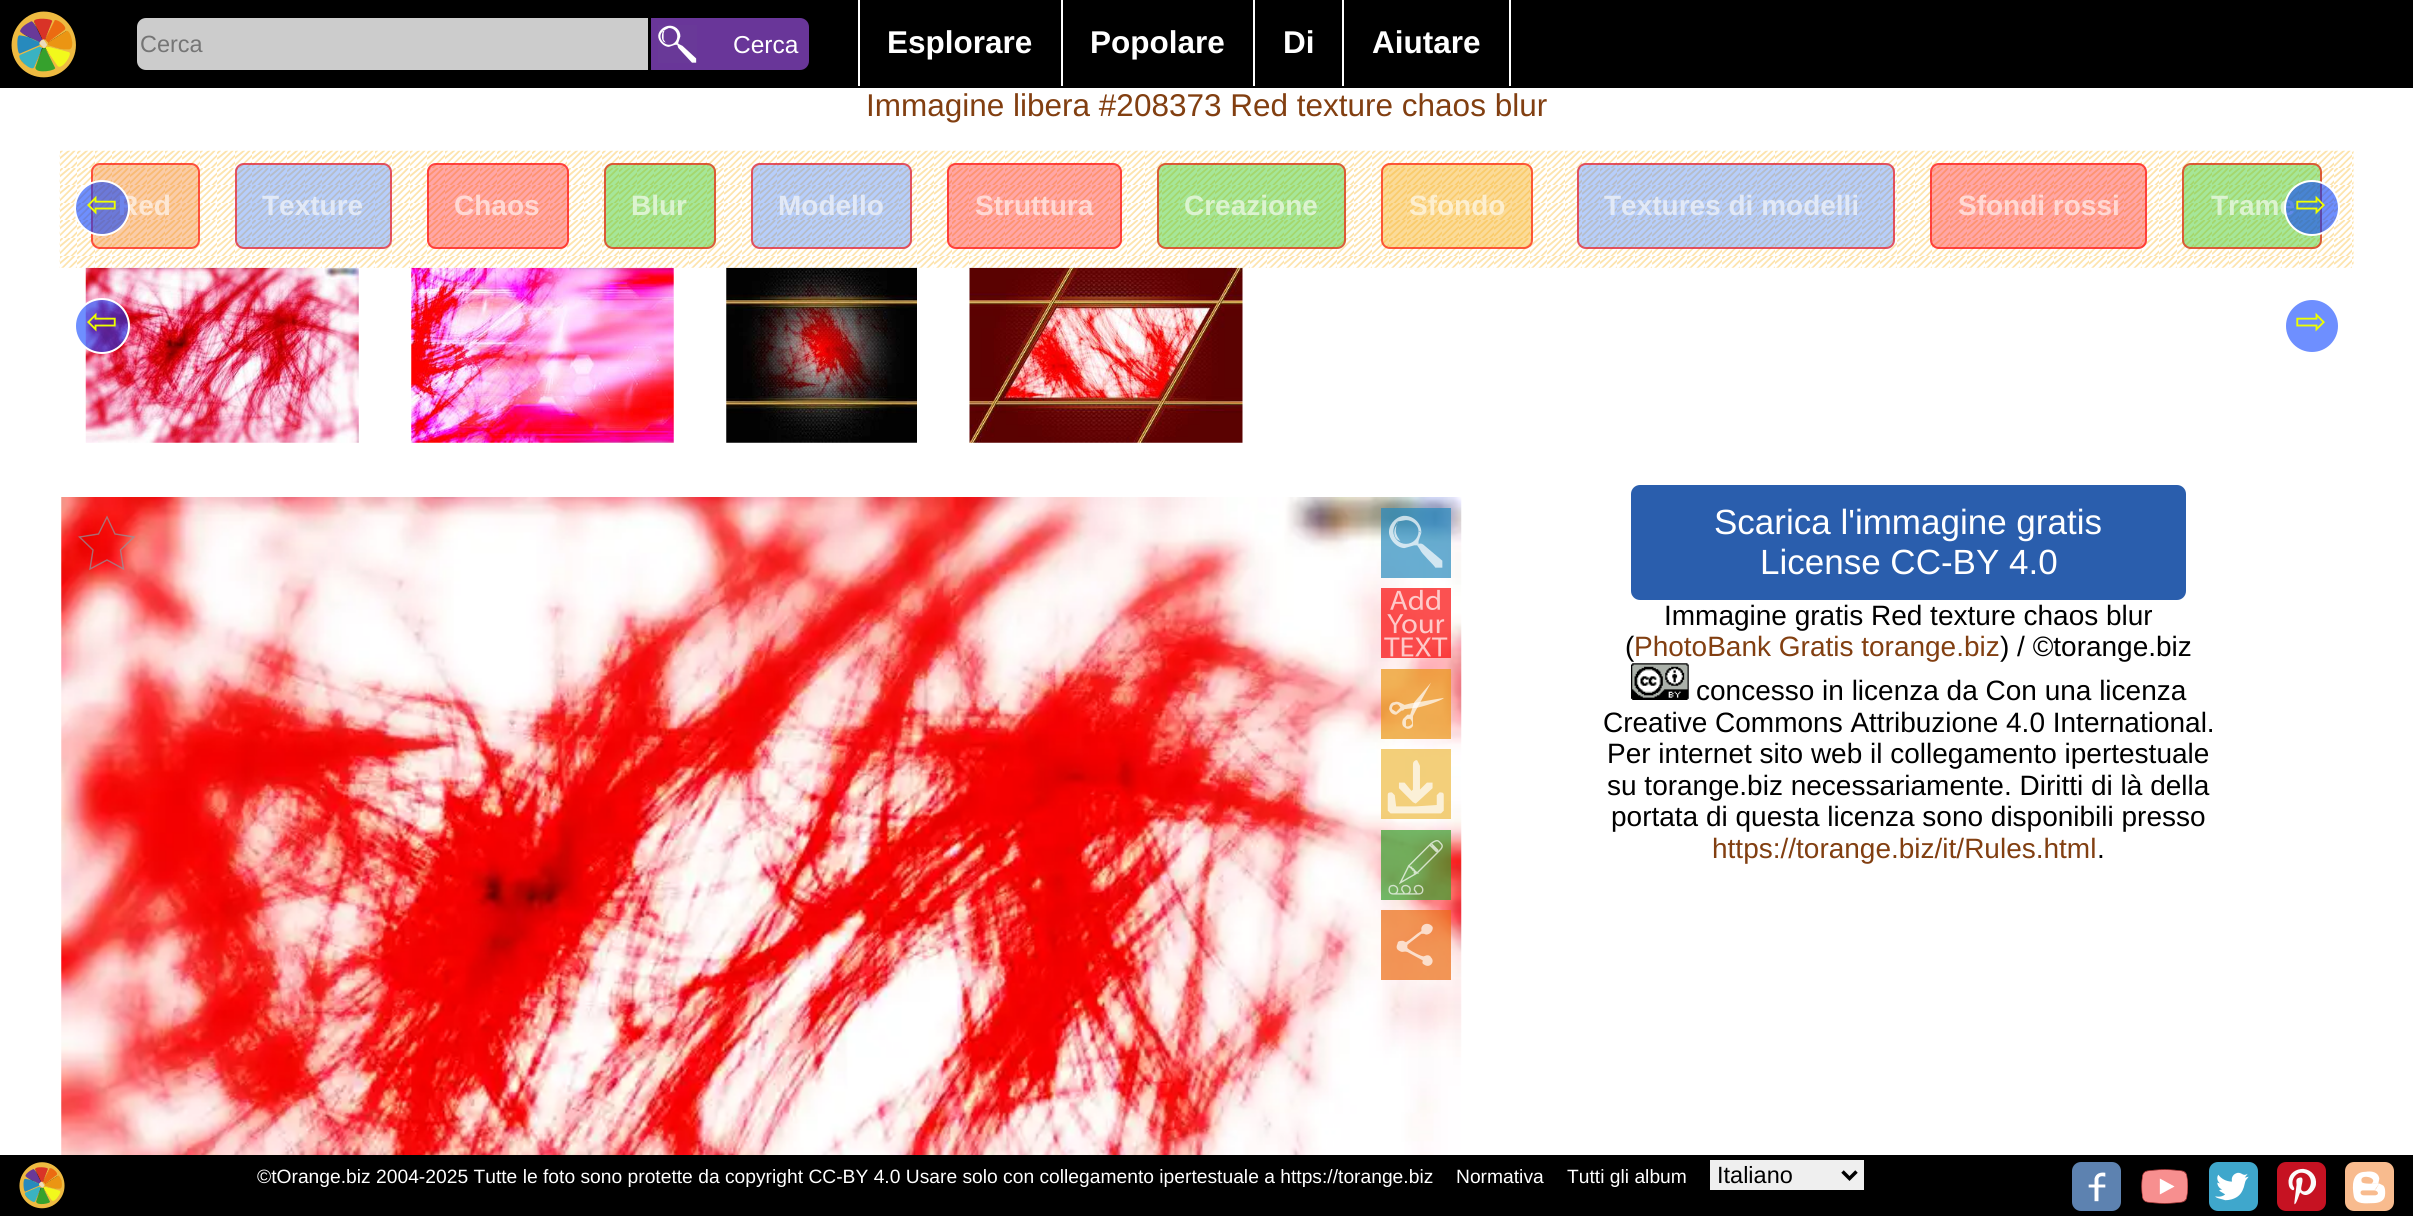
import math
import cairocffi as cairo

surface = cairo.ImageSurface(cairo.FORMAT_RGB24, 2413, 1216)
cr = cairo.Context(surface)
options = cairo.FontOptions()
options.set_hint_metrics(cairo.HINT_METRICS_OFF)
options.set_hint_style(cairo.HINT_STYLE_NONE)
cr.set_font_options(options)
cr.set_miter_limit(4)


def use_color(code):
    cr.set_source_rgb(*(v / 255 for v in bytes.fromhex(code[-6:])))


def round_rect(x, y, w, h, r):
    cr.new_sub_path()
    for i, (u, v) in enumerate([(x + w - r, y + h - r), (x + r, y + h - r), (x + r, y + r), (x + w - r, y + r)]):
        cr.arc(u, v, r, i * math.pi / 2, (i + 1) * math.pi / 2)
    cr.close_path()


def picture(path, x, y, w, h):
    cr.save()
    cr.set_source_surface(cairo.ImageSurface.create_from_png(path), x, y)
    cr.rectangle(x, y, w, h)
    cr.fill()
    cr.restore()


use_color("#ffffff")
cr.paint()
use_color("#000000")
cr.rectangle(0, 0, 2413, 88)
cr.fill()
picture("img1.png", 11, 11, 65, 67)
use_color("#cccccc")
cr.new_path()
cr.move_to(146, 18)
cr.line_to(648, 18)
cr.line_to(648, 70)
cr.line_to(146, 70)
cr.curve_to(141, 70, 137, 66, 137, 61)
cr.line_to(137, 27)
cr.curve_to(137, 22, 141, 18, 146, 18)
cr.close_path()
cr.fill()
cr.select_font_face("Liberation Sans")
cr.set_font_size(23.5)
use_color("#757575")
cr.move_to(140, 52)
cr.show_text("Cerca")
use_color("#693699")
cr.new_path()
cr.move_to(651, 18)
cr.line_to(800, 18)
cr.curve_to(805, 18, 809, 22, 809, 27)
cr.line_to(809, 61)
cr.curve_to(809, 66, 805, 70, 800, 70)
cr.line_to(651, 70)
cr.close_path()
cr.fill()
picture("img2.png", 658, 25, 39, 38)
cr.set_font_size(24.5)
use_color("#ffffff")
cr.move_to(733, 53)
cr.show_text("Cerca")
cr.rectangle(858, 0, 2, 86)
cr.fill()
cr.select_font_face("Liberation Sans", cairo.FONT_SLANT_NORMAL, cairo.FONT_WEIGHT_BOLD)
cr.set_font_size(31.5)
cr.move_to(887, 53)
cr.show_text("Esplorare")
cr.rectangle(1061, 0, 2, 86)
cr.fill()
cr.move_to(1090, 53)
cr.show_text("Popolare")
cr.rectangle(1253, 0, 2, 86)
cr.fill()
cr.move_to(1283, 53)
cr.show_text("Di")
cr.rectangle(1509, 0, 2, 86)
cr.fill()
cr.rectangle(1342, 0, 2, 86)
cr.fill()
cr.move_to(1372, 53)
cr.show_text("Aiutare")
cr.select_font_face("Liberation Sans")
use_color("#823f11")
cr.move_to(866, 116)
cr.show_text("Immagine libera #208373 Red texture chaos blur")
picture("img3.png", 59, 150, 2295, 118)
cr.set_source_rgba(0.941, 0.459, 0.075, 0.37)
round_rect(91, 163, 109, 86, 9)
cr.fill()
round_rect(92, 164, 107, 84, 8)
cr.set_source_rgba(1, 0, 0, 0.6)
cr.stroke()
cr.select_font_face("Liberation Sans", cairo.FONT_SLANT_NORMAL, cairo.FONT_WEIGHT_BOLD)
cr.set_font_size(28)
use_color("#fde8d5")
cr.move_to(118, 215)
cr.show_text("Red")
cr.set_source_rgba(0, 0.227, 1, 0.57)
cr.new_path()
cr.arc(102, 208, 27, 0, 2 * math.pi)
cr.fill_preserve()
use_color("#ffffff")
cr.stroke()
cr.select_font_face("DejaVu Sans")
cr.set_font_size(38)
use_color("#edff00")
cr.move_to(86, 217)
cr.show_text("⇦")
cr.set_source_rgba(0.278, 0.502, 0.953, 0.39)
round_rect(235, 163, 157, 86, 9)
cr.fill()
round_rect(236, 164, 155, 84, 8)
cr.set_source_rgba(1, 0, 0, 0.6)
cr.stroke()
cr.select_font_face("Liberation Sans", cairo.FONT_SLANT_NORMAL, cairo.FONT_WEIGHT_BOLD)
cr.set_font_size(28)
use_color("#e2e9f6")
cr.move_to(262, 215)
cr.show_text("Texture")
cr.set_source_rgba(1, 0, 0, 0.35)
round_rect(427, 163, 142, 86, 9)
cr.fill()
round_rect(428, 164, 140, 84, 8)
cr.set_source_rgba(1, 0, 0, 0.6)
cr.stroke()
use_color("#ffd9d4")
cr.move_to(454, 215)
cr.show_text("Chaos")
cr.set_source_rgba(0.231, 0.788, 0.114, 0.45)
round_rect(604, 163, 112, 86, 9)
cr.fill()
round_rect(605, 164, 110, 84, 8)
cr.set_source_rgba(1, 0, 0, 0.6)
cr.stroke()
use_color("#dcf3d0")
cr.move_to(631, 215)
cr.show_text("Blur")
cr.set_source_rgba(0.278, 0.502, 0.953, 0.39)
round_rect(751, 163, 161, 86, 9)
cr.fill()
round_rect(752, 164, 159, 84, 8)
cr.set_source_rgba(1, 0, 0, 0.6)
cr.stroke()
use_color("#e2e9f6")
cr.move_to(778, 215)
cr.show_text("Modello")
cr.set_source_rgba(1, 0, 0, 0.35)
round_rect(947, 163, 175, 86, 9)
cr.fill()
round_rect(948, 164, 173, 84, 8)
cr.set_source_rgba(1, 0, 0, 0.6)
cr.stroke()
use_color("#ffd9d4")
cr.move_to(975, 215)
cr.show_text("Struttura")
cr.set_source_rgba(0.231, 0.788, 0.114, 0.45)
round_rect(1157, 163, 189, 86, 9)
cr.fill()
round_rect(1158, 164, 187, 84, 8)
cr.set_source_rgba(1, 0, 0, 0.6)
cr.stroke()
use_color("#dcf3d0")
cr.move_to(1184, 215)
cr.show_text("Creazione")
cr.set_source_rgba(0.969, 0.69, 0.118, 0.45)
round_rect(1381, 163, 152, 86, 9)
cr.fill()
round_rect(1382, 164, 150, 84, 8)
cr.set_source_rgba(1, 0, 0, 0.6)
cr.stroke()
use_color("#fdefd0")
cr.move_to(1409, 215)
cr.show_text("Sfondo")
cr.set_source_rgba(0.278, 0.502, 0.953, 0.39)
round_rect(1577, 163, 318, 86, 9)
cr.fill()
round_rect(1578, 164, 316, 84, 8)
cr.set_source_rgba(1, 0, 0, 0.6)
cr.stroke()
use_color("#e2e9f6")
cr.move_to(1604, 215)
cr.show_text("Textures di modelli")
cr.set_source_rgba(1, 0, 0, 0.35)
round_rect(1930, 163, 217, 86, 9)
cr.fill()
round_rect(1931, 164, 215, 84, 8)
cr.set_source_rgba(1, 0, 0, 0.6)
cr.stroke()
use_color("#ffd9d4")
cr.move_to(1958, 215)
cr.show_text("Sfondi rossi")
cr.set_source_rgba(0.231, 0.788, 0.114, 0.45)
round_rect(2182, 163, 140, 86, 9)
cr.fill()
round_rect(2183, 164, 138, 84, 8)
cr.set_source_rgba(1, 0, 0, 0.6)
cr.stroke()
use_color("#dcf3d0")
cr.move_to(2211, 215)
cr.show_text("Trame")
cr.set_source_rgba(0, 0.227, 1, 0.57)
cr.new_path()
cr.arc(2312, 208, 27, 0, 2 * math.pi)
cr.fill_preserve()
use_color("#ffffff")
cr.stroke()
cr.select_font_face("DejaVu Sans")
cr.set_font_size(38)
use_color("#edff00")
cr.move_to(2295, 217)
cr.show_text("⇨")
picture("img4.png", 85, 267, 274, 176)
picture("img5.png", 411, 267, 263, 176)
picture("img6.png", 726, 267, 191, 176)
picture("img7.png", 969, 267, 274, 176)
cr.set_source_rgba(0, 0.227, 1, 0.57)
cr.arc(102, 326, 27, 0, 2 * math.pi)
cr.fill_preserve()
use_color("#ffffff")
cr.stroke()
use_color("#edff00")
cr.move_to(86, 334)
cr.show_text("⇦")
use_color("#6e8fff")
cr.new_path()
cr.arc(2312, 326, 27, 0, 2 * math.pi)
cr.fill_preserve()
use_color("#ffffff")
cr.stroke()
use_color("#edff00")
cr.move_to(2295, 334)
cr.show_text("⇨")
picture("img8.png", 61, 497, 1401, 658)
cr.new_path()
cr.move_to(107, 517)
cr.line_to(115, 534)
cr.line_to(134, 537)
cr.line_to(120.5, 550)
cr.line_to(123.5, 569)
cr.line_to(107, 560)
cr.line_to(90, 569)
cr.line_to(93, 550)
cr.line_to(79.5, 537)
cr.line_to(98.5, 534)
cr.close_path()
cr.set_source_rgba(0.549, 0.596, 0.627, 0.7)
cr.set_line_width(1.4)
cr.stroke()
picture("img9.png", 1381, 508, 70, 70)
picture("img10.png", 1381, 588, 70, 70)
picture("img11.png", 1381, 669, 70, 70)
picture("img12.png", 1381, 749, 70, 70)
picture("img13.png", 1381, 830, 70, 70)
picture("img14.png", 1381, 910, 70, 70)
use_color("#2a5ead")
round_rect(1631, 485, 555, 115, 9)
cr.fill()
cr.select_font_face("Liberation Sans")
cr.set_font_size(35)
use_color("#ffffff")
cr.move_to(1714, 534)
cr.show_text("Scarica l'immagine gratis")
cr.move_to(1760, 574)
cr.show_text("License CC-BY 4.0")
cr.set_font_size(28)
use_color("#000000")
cr.move_to(1664, 625)
cr.show_text("Immagine gratis Red texture chaos blur")
cr.move_to(1625, 656)
cr.show_text("(")
use_color("#823f11")
cr.move_to(1634, 656)
cr.show_text("PhotoBank Gratis torange.biz")
use_color("#000000")
cr.move_to(2000, 656)
cr.show_text(") / ©torange.biz")
picture("img15.png", 1631, 663, 58, 37)
cr.move_to(1696, 700)
cr.show_text("concesso in licenza da Con una licenza")
cr.move_to(1603, 732)
cr.show_text("Creative Commons Attribuzione 4.0 International.")
cr.move_to(1607, 763)
cr.show_text("Per internet sito web il collegamento ipertestuale")
cr.move_to(1607, 795)
cr.show_text("su torange.biz necessariamente. Diritti di là della")
cr.move_to(1611, 826)
cr.show_text("portata di questa licenza sono disponibili presso")
use_color("#823f11")
cr.move_to(1712, 858)
cr.show_text("https://torange.biz/it/Rules.html")
use_color("#000000")
cr.move_to(2097, 858)
cr.show_text(".")
cr.rectangle(0, 1155, 2413, 61)
cr.fill()
picture("img16.png", 19, 1162, 46, 47)
cr.set_font_size(19.25)
use_color("#ffffff")
cr.move_to(257, 1183)
cr.show_text("©tOrange.biz 2004-2025 Tutte le foto sono protette da copyright CC-BY 4.0 Usare solo con collegamento ipertestuale a https://torange.biz")
cr.move_to(1456, 1183)
cr.show_text("Normativa")
cr.move_to(1567, 1183)
cr.show_text("Tutti gli album")
use_color("#efefef")
cr.rectangle(1710, 1160, 154, 30)
cr.fill()
cr.new_path()
cr.move_to(1842.5, 1171.5)
cr.line_to(1849.5, 1178.5)
cr.line_to(1856.5, 1171.5)
use_color("#000000")
cr.set_line_width(3.5)
cr.stroke()
cr.set_font_size(23.5)
cr.move_to(1717, 1183)
cr.show_text("Italiano")
picture("img17.png", 2072, 1162, 49, 49)
picture("img18.png", 2141, 1169, 47, 35)
picture("img19.png", 2209, 1162, 49, 49)
picture("img20.png", 2277, 1162, 49, 49)
picture("img21.png", 2345, 1162, 49, 49)
surface.write_to_png("result.png")
